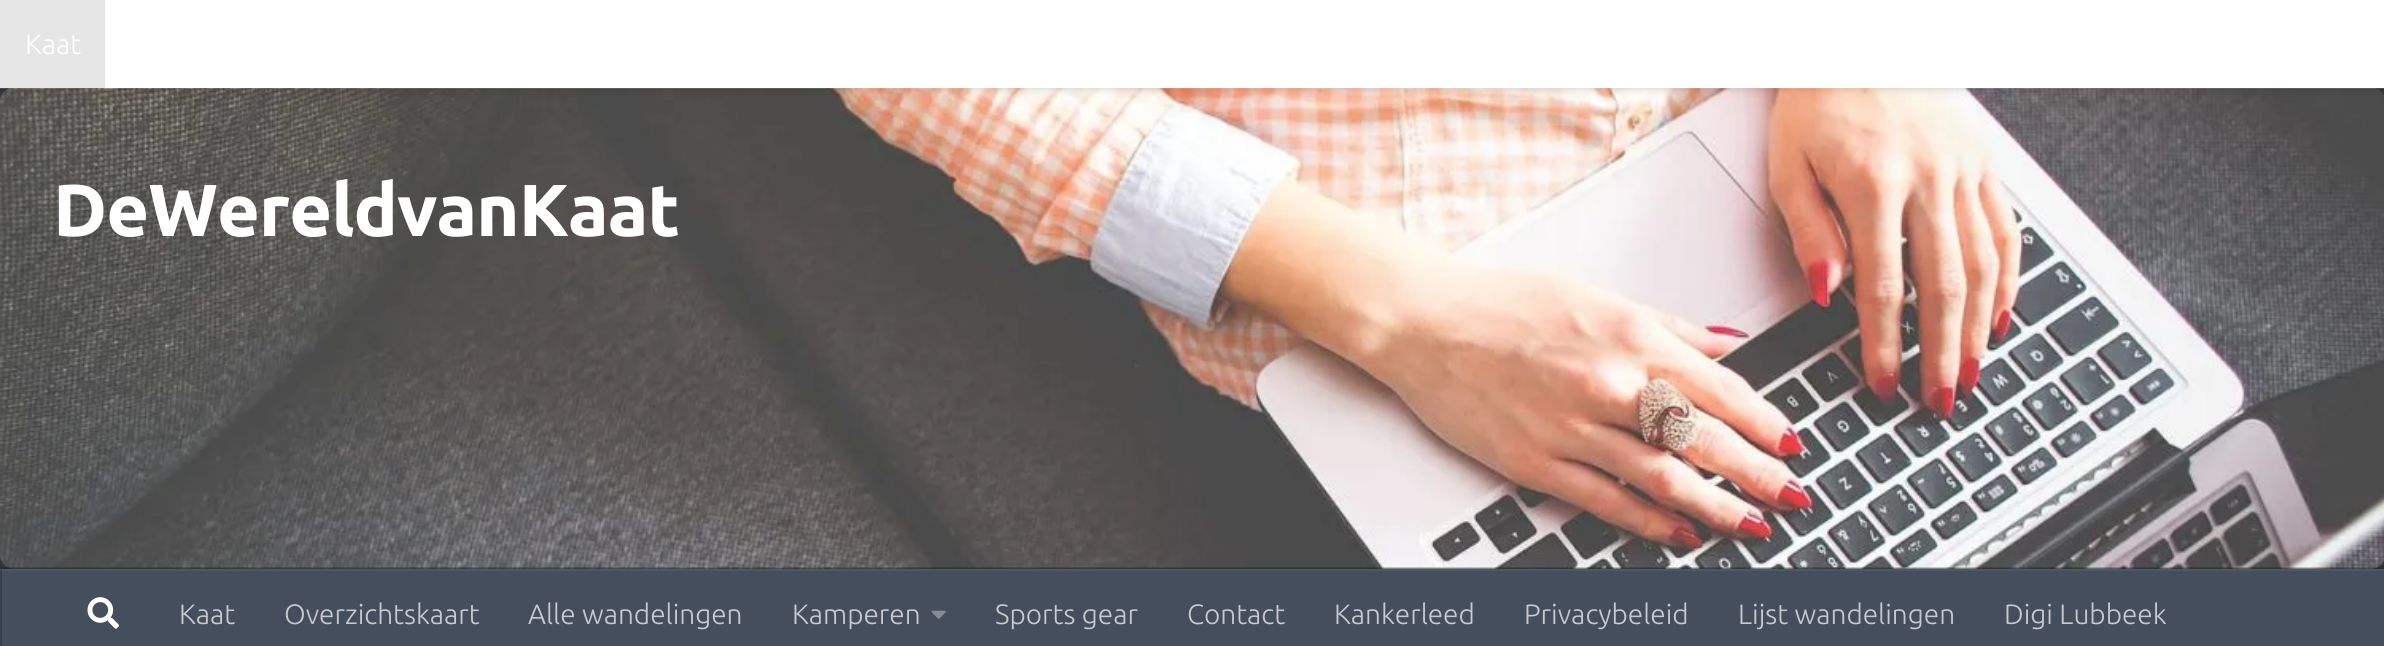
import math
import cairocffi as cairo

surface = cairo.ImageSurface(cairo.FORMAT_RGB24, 2384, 646)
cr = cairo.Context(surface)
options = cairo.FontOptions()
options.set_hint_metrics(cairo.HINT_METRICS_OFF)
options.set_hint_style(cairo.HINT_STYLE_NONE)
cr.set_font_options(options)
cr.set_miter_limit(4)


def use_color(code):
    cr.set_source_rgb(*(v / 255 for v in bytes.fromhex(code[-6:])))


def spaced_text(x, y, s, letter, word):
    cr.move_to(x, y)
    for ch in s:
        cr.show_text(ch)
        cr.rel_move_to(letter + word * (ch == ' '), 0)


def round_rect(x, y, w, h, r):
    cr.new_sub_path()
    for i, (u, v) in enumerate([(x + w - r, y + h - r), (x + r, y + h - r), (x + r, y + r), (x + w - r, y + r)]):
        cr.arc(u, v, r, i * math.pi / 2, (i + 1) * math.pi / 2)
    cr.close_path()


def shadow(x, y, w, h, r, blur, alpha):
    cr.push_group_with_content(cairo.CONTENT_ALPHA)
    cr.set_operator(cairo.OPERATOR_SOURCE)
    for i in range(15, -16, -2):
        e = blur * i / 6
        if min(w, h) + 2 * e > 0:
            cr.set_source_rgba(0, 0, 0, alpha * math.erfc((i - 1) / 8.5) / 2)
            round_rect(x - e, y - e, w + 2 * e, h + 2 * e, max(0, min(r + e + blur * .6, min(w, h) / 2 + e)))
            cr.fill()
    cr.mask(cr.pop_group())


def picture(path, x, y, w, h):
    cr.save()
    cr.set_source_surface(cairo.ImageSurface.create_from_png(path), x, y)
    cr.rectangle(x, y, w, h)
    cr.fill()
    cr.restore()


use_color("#33363b")
cr.paint()
picture("img1.png", 0, 88, 2384, 481)
cr.set_source_rgba(1, 1, 1, 0.15)
cr.rectangle(0, 88, 2384, 1)
cr.fill()
use_color("#000000")
shadow(0, 0, 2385, 88, 0, 4.5, 0.2)
use_color("#ffffff")
cr.rectangle(105, 0, 2279, 88)
cr.fill()
use_color("#e6e6e6")
cr.rectangle(0, 0, 105, 88)
cr.fill()
cr.select_font_face("Ubuntu Light")
cr.set_font_size(28)
use_color("#ffffff")
cr.move_to(25, 54)
cr.show_text("Kaat")
cr.select_font_face("Ubuntu", cairo.FONT_SLANT_NORMAL, cairo.FONT_WEIGHT_BOLD)
cr.set_font_size(73.5)
spaced_text(53, 236, "DeWereldvanKaat", -0.9, 0)
cr.set_source_rgba(0, 0, 0, 0.2)
cr.rectangle(0, 567, 2384, 2)
cr.fill()
use_color("#454e5c")
cr.rectangle(2, 571, 2382, 75)
cr.fill()
use_color("#4e5764")
cr.rectangle(0, 569, 2384, 2)
cr.fill()
use_color("#373e4a")
cr.rectangle(0, 569, 2, 77)
cr.fill()
use_color("#414853")
cr.rectangle(0, 569, 2, 2)
cr.fill()
picture("img2.png", 87, 597, 32, 32)
cr.select_font_face("Ubuntu Light")
cr.set_font_size(28)
use_color("#c7cace")
cr.move_to(179, 624)
cr.show_text("Kaat")
cr.move_to(284, 624)
cr.show_text("Overzichtskaart")
cr.move_to(528, 624)
cr.show_text("Alle wandelingen")
cr.move_to(792, 624)
cr.show_text("Kamperen")
picture("img3.png", 931, 610, 15, 9)
cr.move_to(995, 624)
cr.show_text("Sports gear")
cr.move_to(1187, 624)
cr.show_text("Contact")
cr.move_to(1334, 624)
cr.show_text("Kankerleed")
cr.move_to(1524, 624)
cr.show_text("Privacybeleid")
cr.move_to(1738, 624)
cr.show_text("Lijst wandelingen")
cr.move_to(2004, 624)
cr.show_text("Digi Lubbeek")
surface.write_to_png("result.png")
